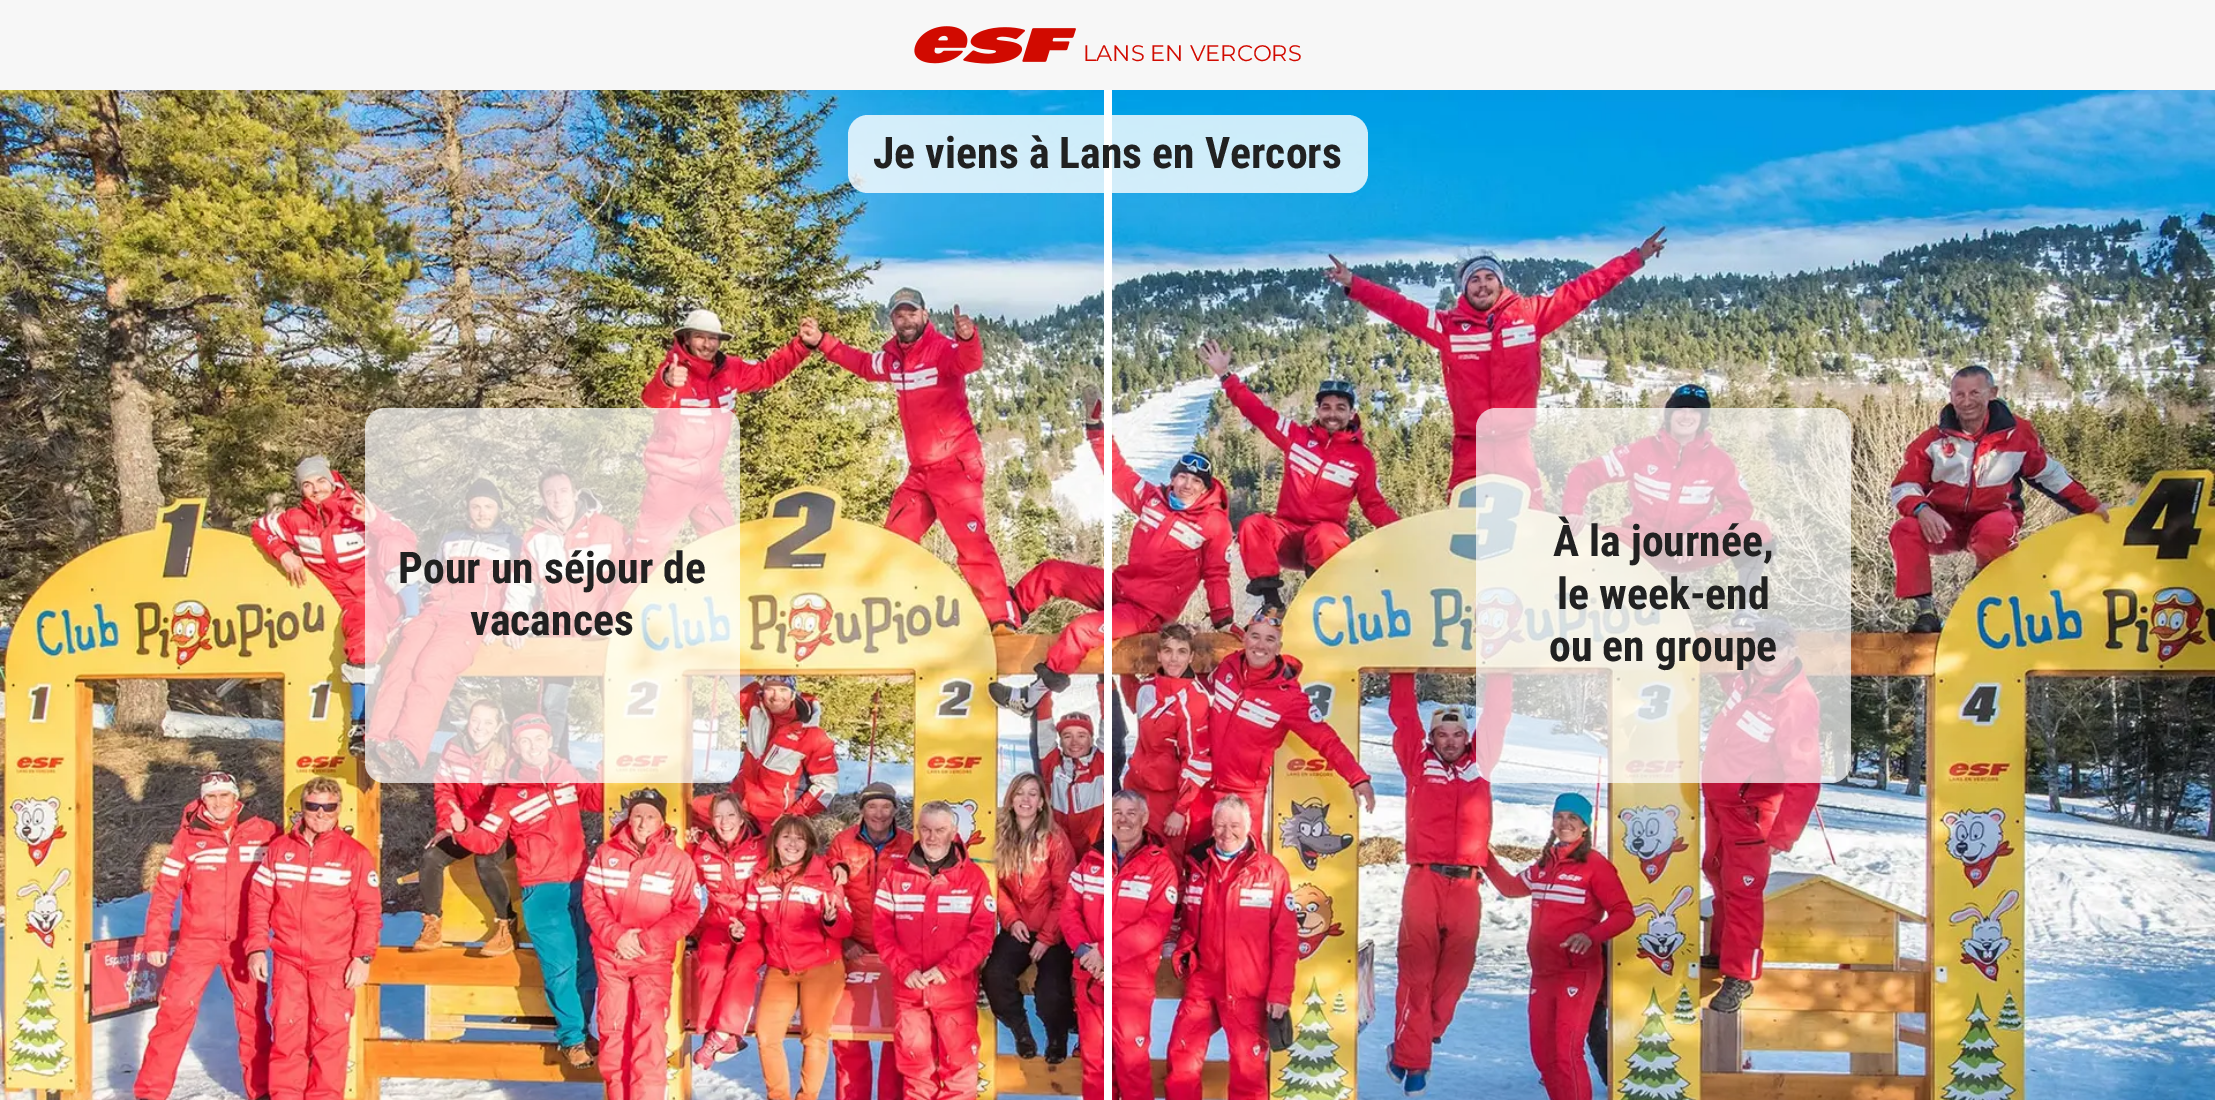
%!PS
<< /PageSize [2215 1100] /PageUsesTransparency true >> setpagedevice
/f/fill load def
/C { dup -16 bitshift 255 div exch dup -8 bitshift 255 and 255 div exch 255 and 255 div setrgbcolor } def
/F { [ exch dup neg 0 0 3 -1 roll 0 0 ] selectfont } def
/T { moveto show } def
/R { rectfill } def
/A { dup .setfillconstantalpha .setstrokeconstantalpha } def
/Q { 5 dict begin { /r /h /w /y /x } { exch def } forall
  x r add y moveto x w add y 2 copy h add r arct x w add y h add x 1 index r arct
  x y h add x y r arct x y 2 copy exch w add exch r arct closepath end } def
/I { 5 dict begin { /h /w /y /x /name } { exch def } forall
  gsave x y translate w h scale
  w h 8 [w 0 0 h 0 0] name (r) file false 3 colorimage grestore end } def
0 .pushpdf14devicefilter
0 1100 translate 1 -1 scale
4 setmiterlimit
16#F7F7F7 C
0 0 2215 1100 R
(1.rgb) 914 26 162 38 I
/Montserrat-Regular 22.5 F
16#D10A00 C
(LANS EN VERCORS) 1083 61 T
(2.rgb) 0 90 2215 1010 I
16#FFFFFF C
1104 90 8 1010 R
0.8 A
848 115 520 78 20 Q f
/RobotoCondensed-Bold 43.75 F
1 A
16#212121 C
(Je viens à Lans en Vercors) 873 168 T
0.7 A
16#FFFFFF C
365 408 375 375 20 Q f
1 A
16#212121 C
(Pour un séjour de) 398 583 T
(vacances) 470 635 T
0.7 A
16#FFFFFF C
1476 408 375 375 20 Q f
1 A
16#212121 C
(À la journée,) 1553 556 T
(le week-end) 1557 609 T
(ou en groupe) 1549 661 T
.poppdf14devicefilter showpage
